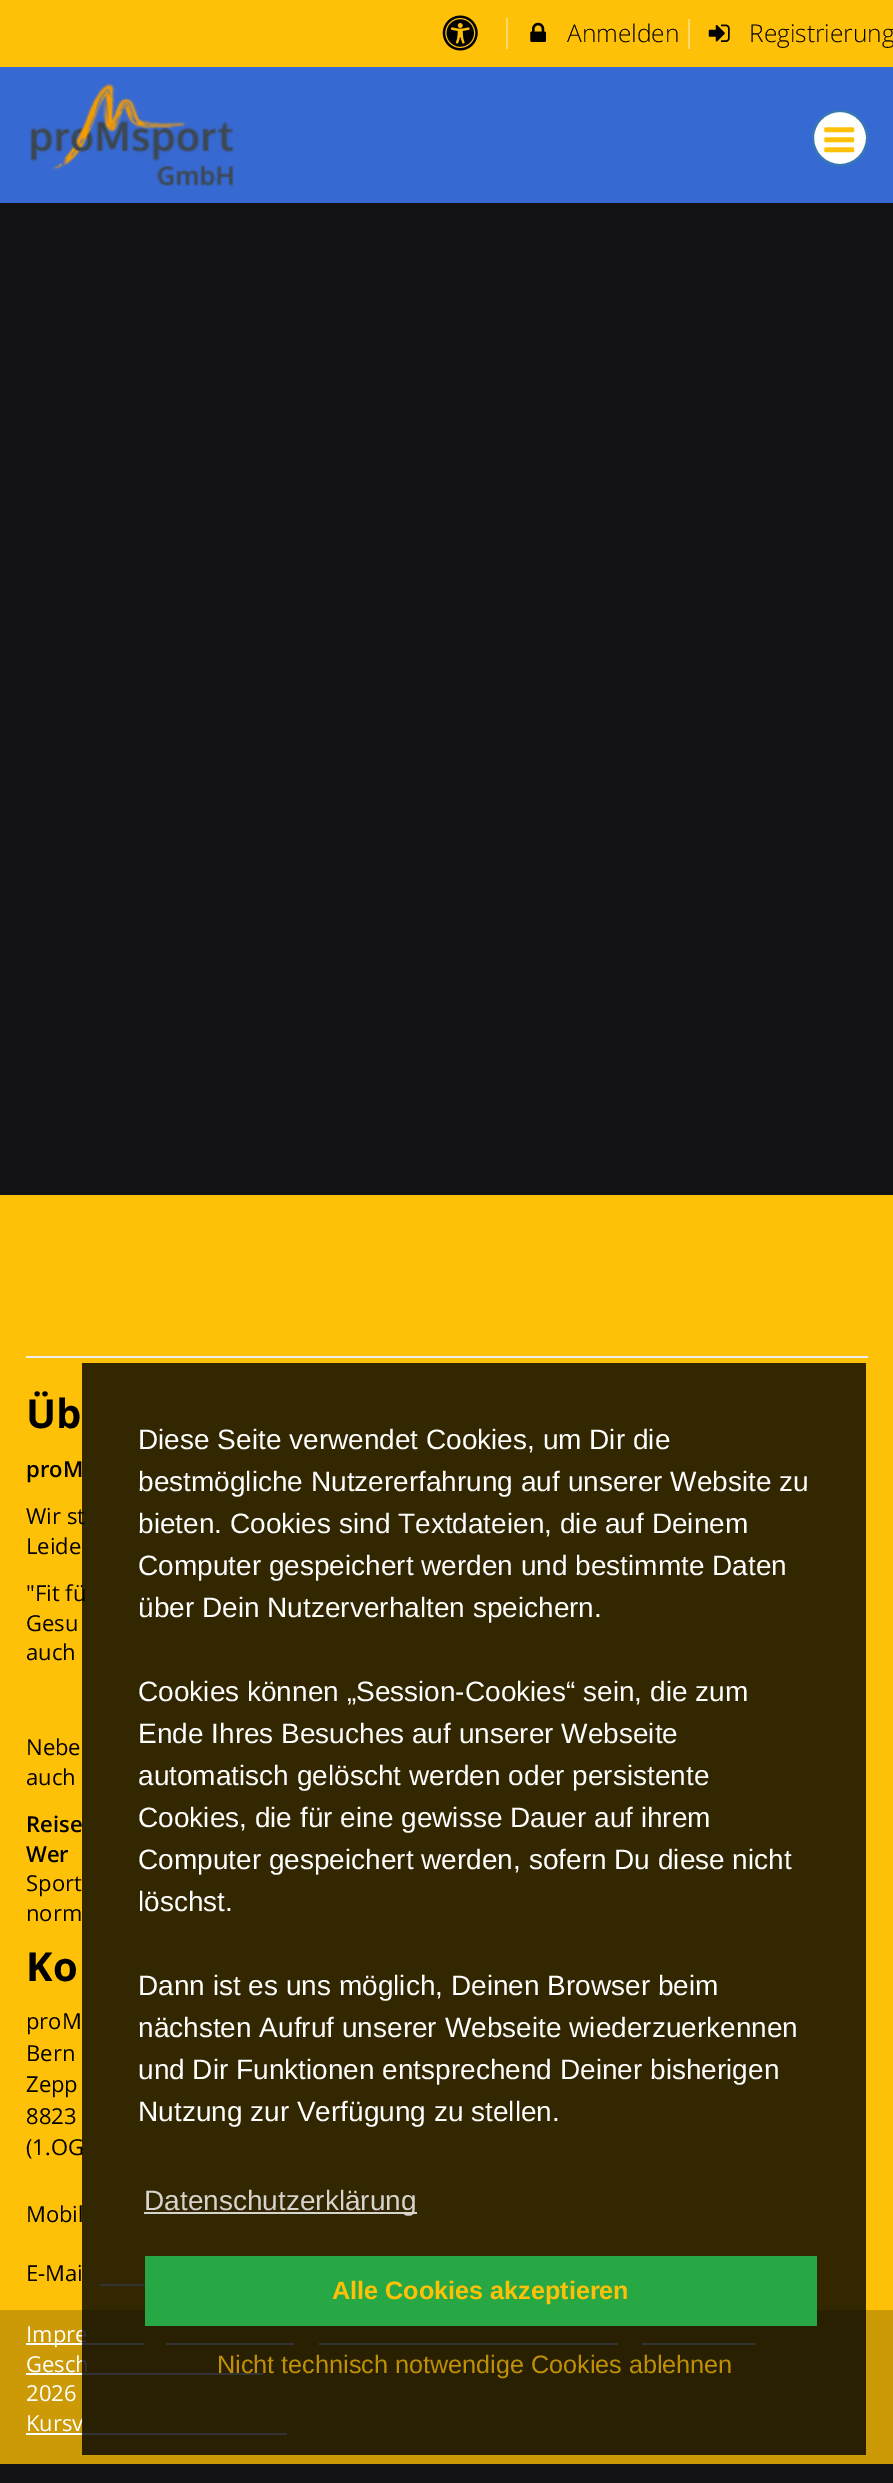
%!PS
<< /PageSize [893 2483] /PageUsesTransparency true >> setpagedevice
/f/fill load def
/s/stroke load def
/q/gsave load def
/Q_/grestore load def
/w/setlinewidth load def
/C { dup -16 bitshift 255 div exch dup -8 bitshift 255 and 255 div exch 255 and 255 div setrgbcolor } def
/F { [ exch dup neg 0 0 3 -1 roll 0 0 ] selectfont } def
/T { moveto show } def
/R { rectfill } def
/A { dup .setfillconstantalpha .setstrokeconstantalpha } def
/O { newpath 0 360 arc closepath } def
/I { 5 dict begin { /h /w /y /x /name } { exch def } forall
  gsave x y translate w h scale
  w h 8 [w 0 0 h 0 0] name (r) file false 3 colorimage grestore end } def
0 .pushpdf14devicefilter
0 2483 translate 1 -1 scale
4 setmiterlimit
16#131315 C
0 0 893 2483 R
16#FFC107 C
0 0 893 67 R
16#FFDA6A C
506 18 2 31 R
(1.rgb) 442 15 36 36 I
688 19 2 30 R
(2.rgb) 530 22 16 20 I
/OpenSans-Light 24.5 F
16#000000 C
(Anmelden) 567 42 T
(3.rgb) 708 24 22 18 I
(Registrierung) 749 42 T
16#3769D2 C
0 67 893 136 R
(4.rgb) 29 83 205 103 I
16#FFFFFF C
840 138 27 O q f Q_
16#3878B2 C
2 w
s
(5.rgb) 824 127 31 26 I
16#FFC107 C
0 1195 893 1115 R
16#EEEEEE C
26 1356 842 2 R
/OpenSans-Bold 40 F
16#000000 C
(Üb) 26 1428 T
/OpenSans-SemiBold 22 F
(proM) 26 1477 T
/OpenSans-Regular 22 F
(Wir st) 26 1524 T
(Leide) 26 1554 T
("Fit fü) 26 1601 T
(Gesu) 26 1631 T
(auch) 26 1660 T
(Nebe) 26 1755 T
(auch) 26 1785 T
/OpenSans-SemiBold 22 F
(Reise) 26 1832 T
(Wer) 26 1862 T
/OpenSans-Regular 22 F
(Sport) 26 1891 T
(norm) 26 1921 T
/OpenSans-Bold 40 F
(Ko) 26 1981 T
/OpenSans-Regular 22 F
(proM) 26 2029 T
(Bern) 26 2061 T
(Zepp) 26 2092 T
(8823) 26 2124 T
(\(1.OG) 26 2155 T
(Mobil) 26 2222 T
(E-Mai) 26 2281 T
16#FFFFFF C
100 2284 45 2 R
16#CC9A06 C
0 2310 893 154 R
16#FFFFFF C
26 2343 118 2 R
(Impre) 26 2342 T
166 2343 128 2 R
319 2343 299 2 R
(Gesch) 26 2372 T
642 2343 114 2 R
26 2373 237 2 R
(2026) 26 2401 T
(Kursv) 26 2431 T
26 2433 261 2 R
0.8 A
16#000000 C
82 1363 784 1092 R
/LiberationSans-Regular 28 F
1 A
16#FFFFFF C
(Diese Seite verwendet Cookies, um Dir die) 138 1449 T
(bestmögliche Nutzererfahrung auf unserer Website zu) 138 1491 T
(bieten. Cookies sind Textdateien, die auf Deinem) 138 1533 T
(Computer gespeichert werden und bestimmte Daten) 138 1575 T
(über Dein Nutzerverhalten speichern.) 138 1617 T
(Cookies können „Session-Cookies“ sein, die zum) 138 1701 T
(Ende Ihres Besuches auf unserer Webseite) 138 1743 T
(automatisch gelöscht werden oder persistente) 138 1785 T
(Cookies, die für eine gewisse Dauer auf ihrem) 138 1827 T
(Computer gespeichert werden, sofern Du diese nicht) 138 1869 T
(löschst.) 138 1911 T
(Dann ist es uns möglich, Deinen Browser beim) 138 1995 T
(nächsten Aufruf unserer Webseite wiederzuerkennen) 138 2037 T
(und Dir Funktionen entsprechend Deiner bisherigen) 138 2079 T
(Nutzung zur Verfügung zu stellen.) 138 2121 T
0.8 A
144 2212 273 2 R
1 A
16#D6D4CD C
(Datenschutzerklärung) 144 2210 T
16#28A745 C
145 2256 672 70 R
/LiberationSans-Bold 25.2 F
16#FFC107 C
(Alle Cookies akzeptieren) 332 2299 T
/LiberationSans-Regular 25.2 F
16#BF9006 C
(Nicht technisch notwendige Cookies ablehnen) 217 2373 T
.poppdf14devicefilter showpage
